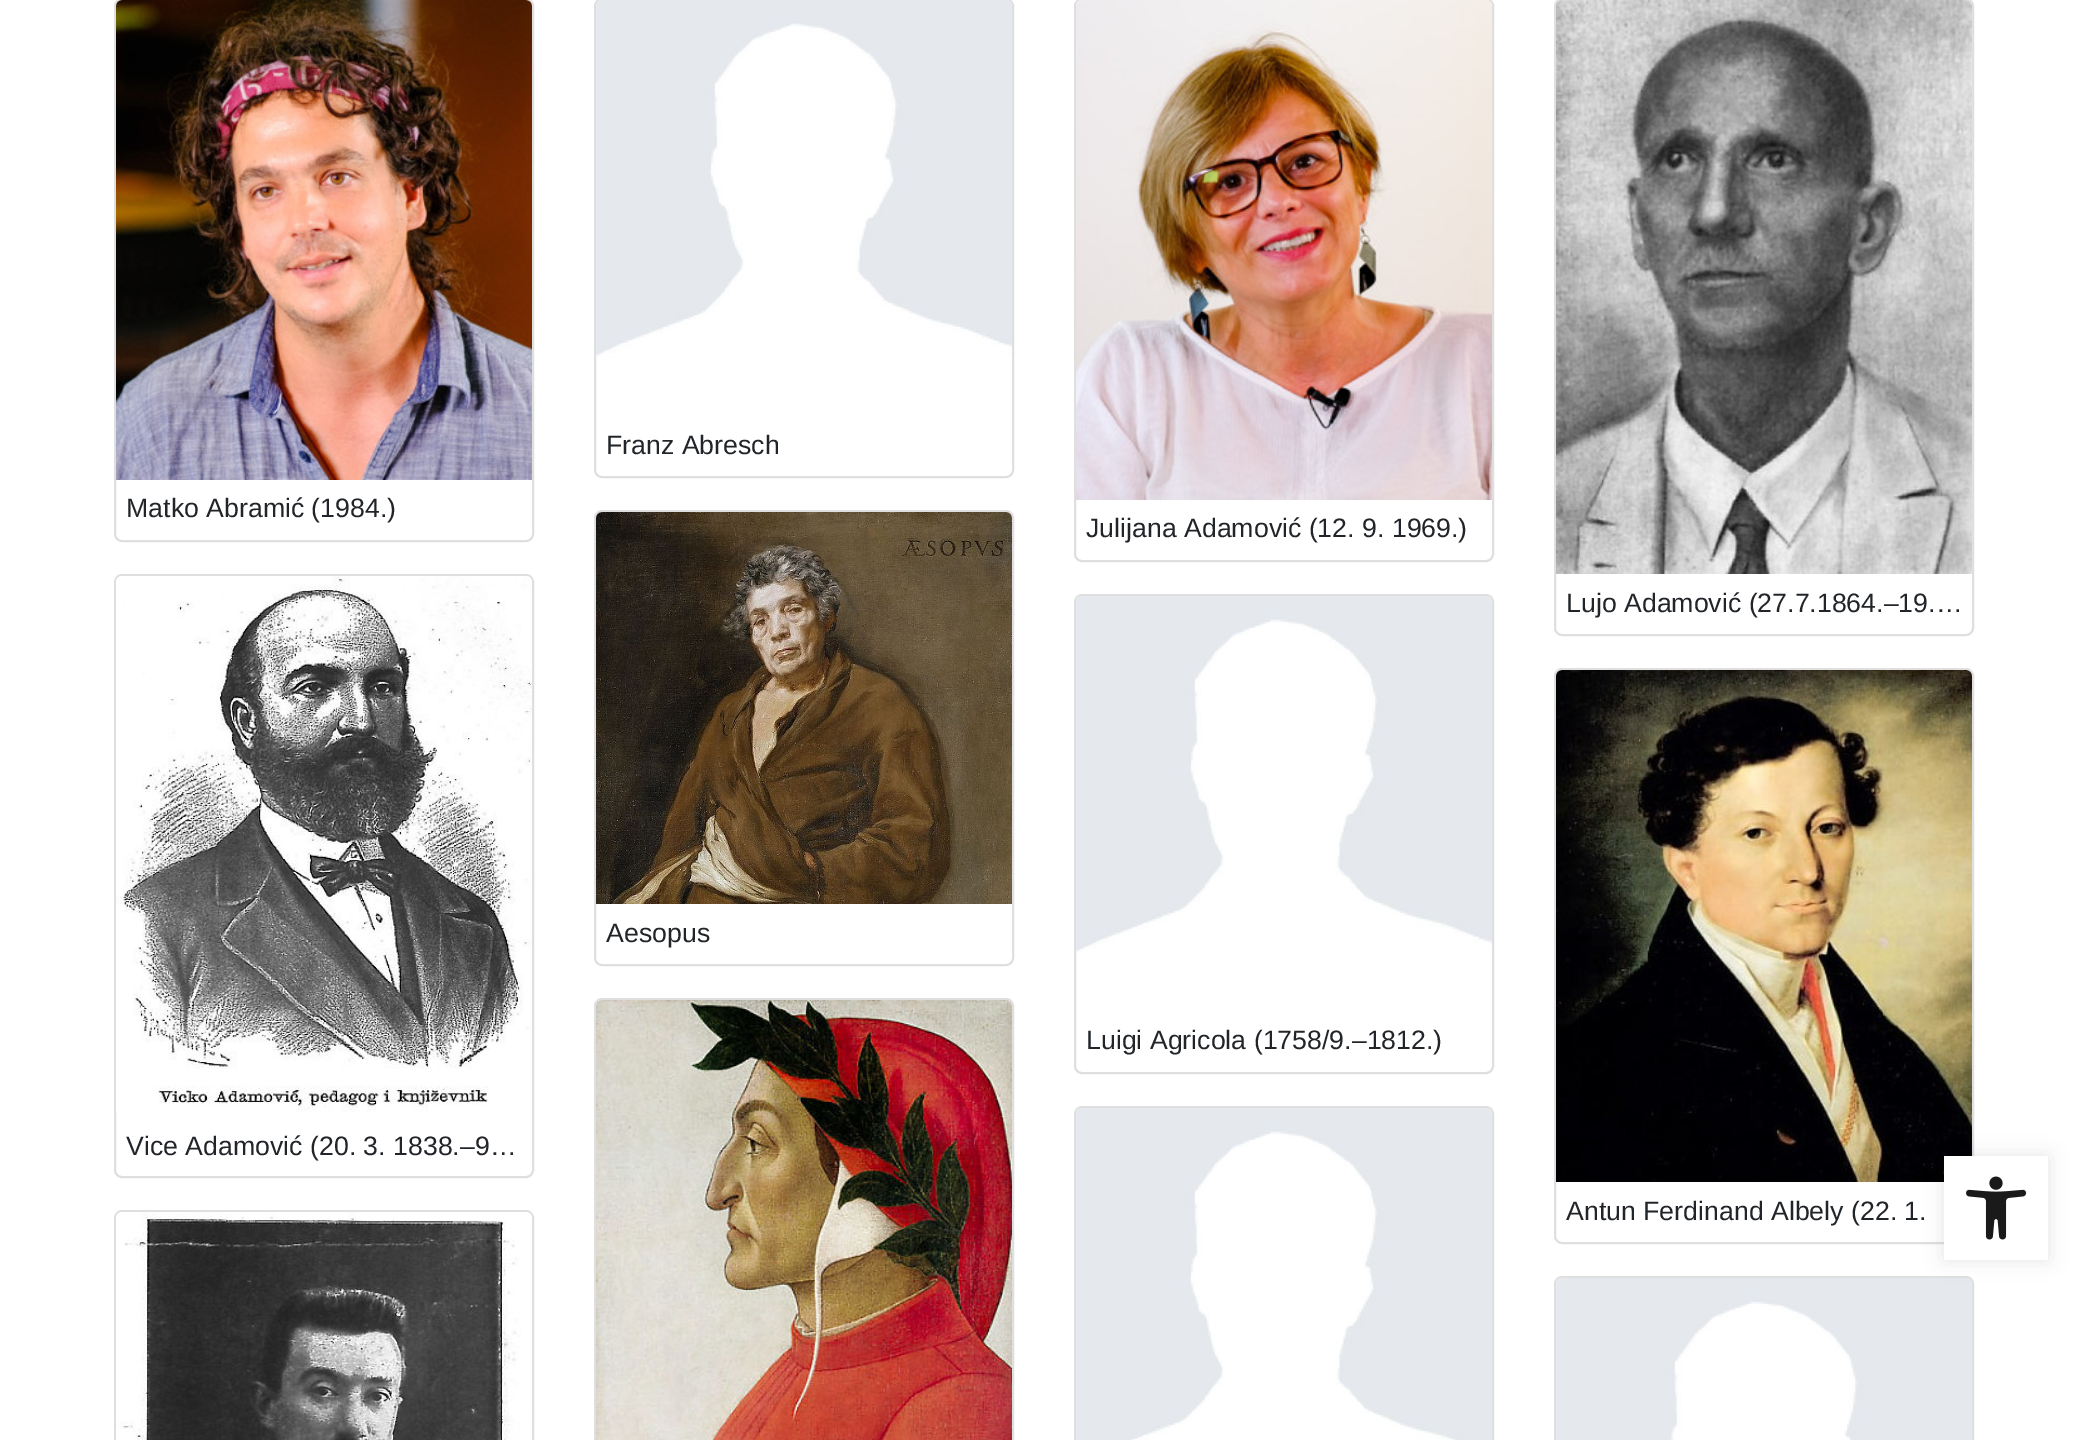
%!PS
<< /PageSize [2088 1440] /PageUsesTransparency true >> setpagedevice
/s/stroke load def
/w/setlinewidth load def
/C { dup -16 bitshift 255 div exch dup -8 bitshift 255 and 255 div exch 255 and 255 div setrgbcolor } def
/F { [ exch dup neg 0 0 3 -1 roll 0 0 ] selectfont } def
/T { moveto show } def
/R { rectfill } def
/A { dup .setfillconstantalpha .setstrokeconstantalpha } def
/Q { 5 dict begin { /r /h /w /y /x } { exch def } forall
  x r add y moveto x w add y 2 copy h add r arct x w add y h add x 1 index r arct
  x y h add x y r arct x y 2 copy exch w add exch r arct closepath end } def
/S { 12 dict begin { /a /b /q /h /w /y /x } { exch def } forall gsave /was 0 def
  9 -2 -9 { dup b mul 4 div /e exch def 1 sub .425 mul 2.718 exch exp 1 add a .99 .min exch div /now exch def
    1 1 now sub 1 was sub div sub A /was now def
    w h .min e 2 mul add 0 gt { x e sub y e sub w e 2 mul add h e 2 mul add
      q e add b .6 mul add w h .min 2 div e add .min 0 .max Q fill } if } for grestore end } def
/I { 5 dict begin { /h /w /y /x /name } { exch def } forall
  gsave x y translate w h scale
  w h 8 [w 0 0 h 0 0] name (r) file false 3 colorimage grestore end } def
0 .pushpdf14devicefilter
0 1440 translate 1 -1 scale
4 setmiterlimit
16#FFFFFF C
0 0 2088 1440 R
16#DFDFDF C
2 w
595 -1 418 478 7 Q s
(1.rgb) 596 0 416 357 I
/LiberationSans-Regular 26.7 F
16#212529 C
(Franz Abresch) 606 454 T
16#DFDFDF C
115 -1 418 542 7 Q s
(2.rgb) 116 0 416 480 I
16#212529 C
(Matko Abramić \(1984.\)) 126 517 T
16#DFDFDF C
1075 -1 418 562 7 Q s
(3.rgb) 1076 0 416 500 I
16#212529 C
(Julijana Adamović \(12. 9. 1969.\)) 1086 537 T
16#DFDFDF C
1555 -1 418 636 7 Q s
(4.rgb) 1556 0 416 574 I
16#212529 C
(Lujo Adamović \(27.7.1864.–19.…) 1566 612 T
16#DFDFDF C
595 511 418 454 7 Q s
(5.rgb) 596 512 416 392 I
16#212529 C
(Aesopus) 606 942 T
16#DFDFDF C
595 999 418 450 7 Q s
(6.rgb) 596 1000 416 440 I
1075 595 418 478 7 Q s
(7.rgb) 1076 596 416 357 I
16#212529 C
(Luigi Agricola \(1758/9.–1812.\)) 1086 1049 T
16#DFDFDF C
115 575 418 602 7 Q s
(8.rgb) 116 576 416 536 I
16#212529 C
(Vice Adamović \(20. 3. 1838.–9…) 126 1155 T
16#DFDFDF C
1075 1107 418 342 7 Q s
(9.rgb) 1076 1108 416 332 I
115 1211 418 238 7 Q s
(10.rgb) 116 1212 416 228 I
1555 669 418 574 7 Q s
(11.rgb) 1556 670 416 512 I
16#212529 C
(Antun Ferdinand Albely \(22. 1.) 1566 1220 T
16#DFDFDF C
1555 1277 418 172 7 Q s
(12.rgb) 1556 1278 416 162 I
16#000000 C
1944 1156 104 104 0 10 .1 S
16#FFFFFF C
1944 1156 104 104 R
(13.rgb) 1966 1176 61 64 I
.poppdf14devicefilter showpage
